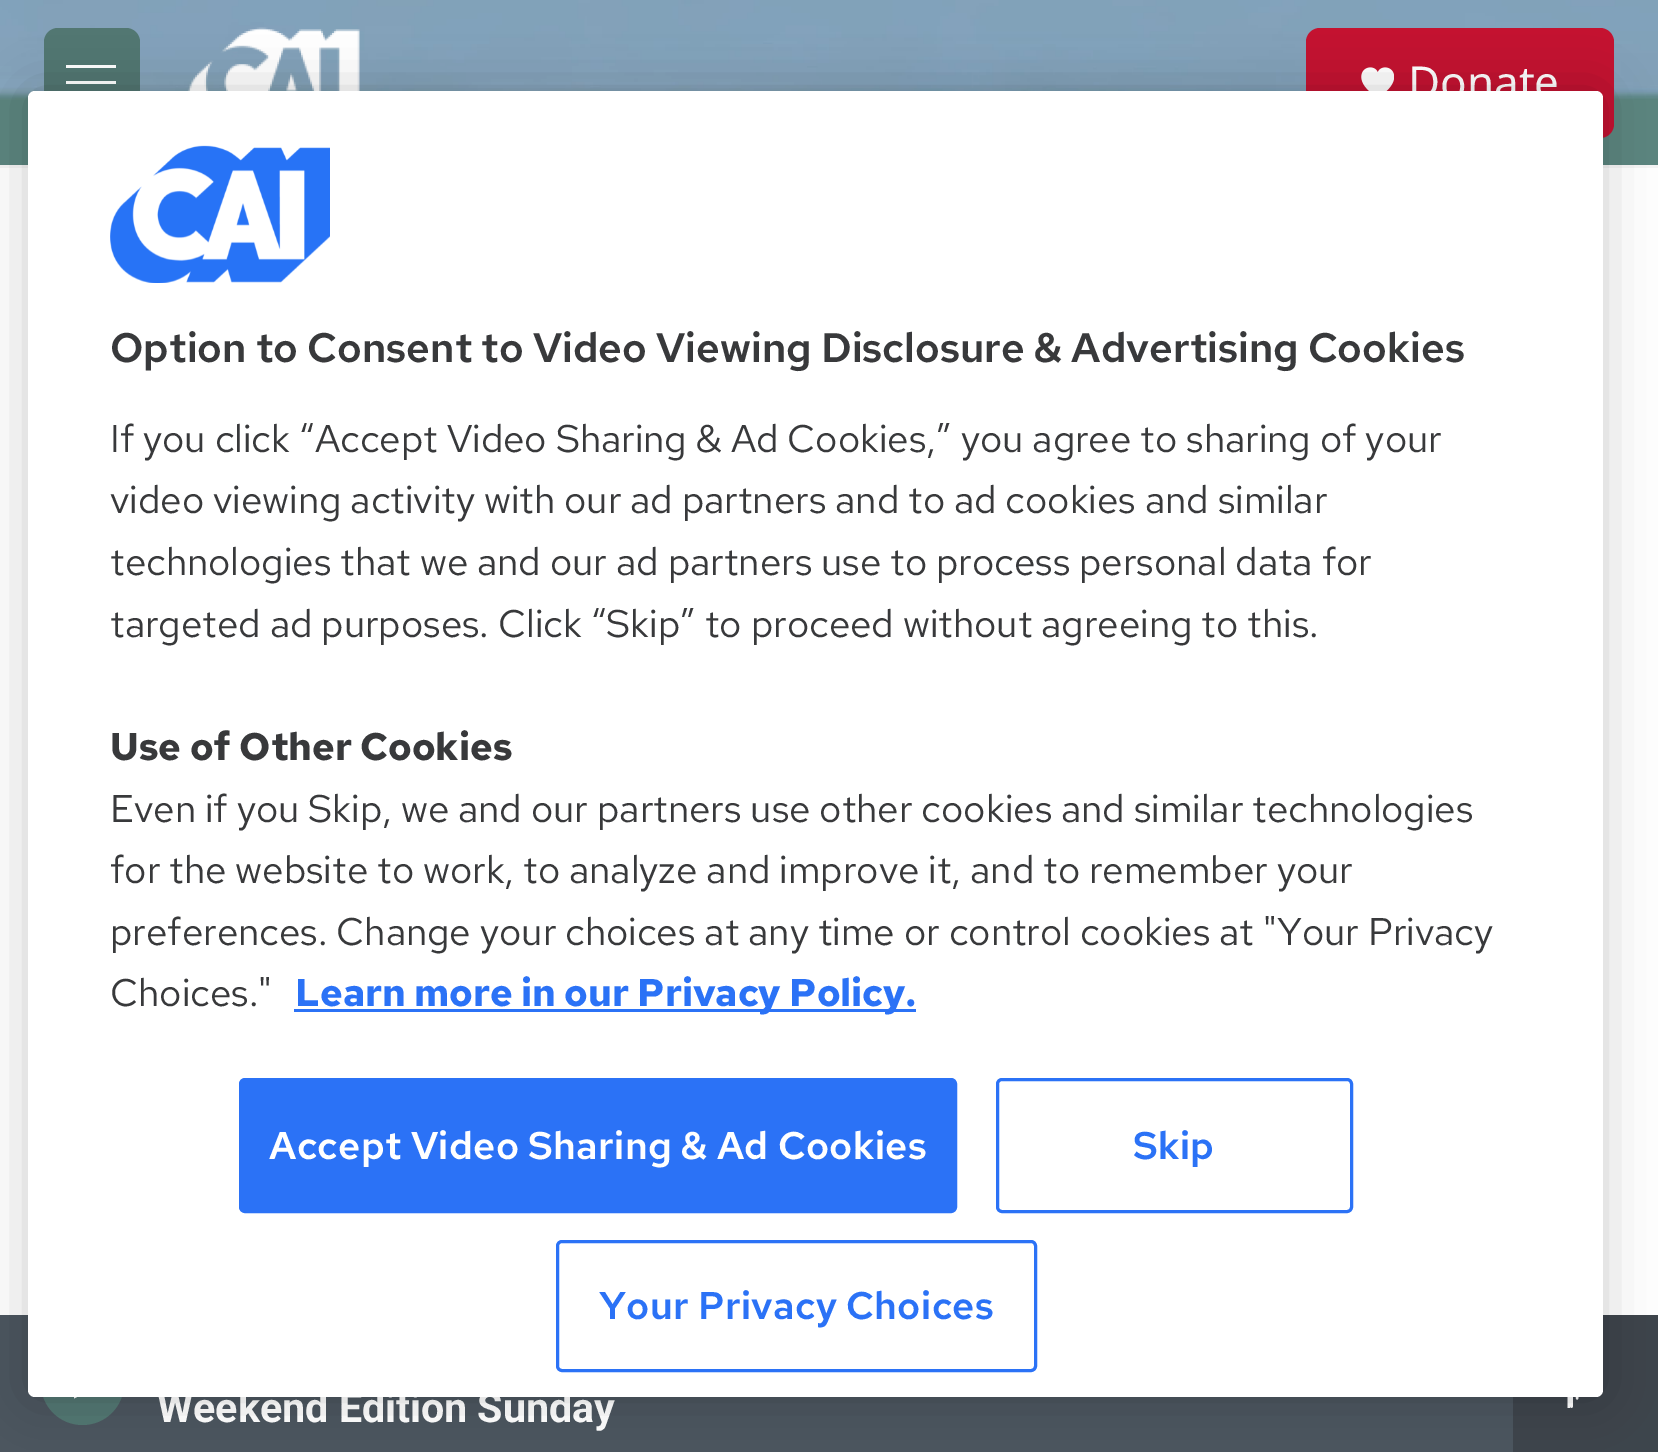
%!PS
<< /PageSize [1658 1452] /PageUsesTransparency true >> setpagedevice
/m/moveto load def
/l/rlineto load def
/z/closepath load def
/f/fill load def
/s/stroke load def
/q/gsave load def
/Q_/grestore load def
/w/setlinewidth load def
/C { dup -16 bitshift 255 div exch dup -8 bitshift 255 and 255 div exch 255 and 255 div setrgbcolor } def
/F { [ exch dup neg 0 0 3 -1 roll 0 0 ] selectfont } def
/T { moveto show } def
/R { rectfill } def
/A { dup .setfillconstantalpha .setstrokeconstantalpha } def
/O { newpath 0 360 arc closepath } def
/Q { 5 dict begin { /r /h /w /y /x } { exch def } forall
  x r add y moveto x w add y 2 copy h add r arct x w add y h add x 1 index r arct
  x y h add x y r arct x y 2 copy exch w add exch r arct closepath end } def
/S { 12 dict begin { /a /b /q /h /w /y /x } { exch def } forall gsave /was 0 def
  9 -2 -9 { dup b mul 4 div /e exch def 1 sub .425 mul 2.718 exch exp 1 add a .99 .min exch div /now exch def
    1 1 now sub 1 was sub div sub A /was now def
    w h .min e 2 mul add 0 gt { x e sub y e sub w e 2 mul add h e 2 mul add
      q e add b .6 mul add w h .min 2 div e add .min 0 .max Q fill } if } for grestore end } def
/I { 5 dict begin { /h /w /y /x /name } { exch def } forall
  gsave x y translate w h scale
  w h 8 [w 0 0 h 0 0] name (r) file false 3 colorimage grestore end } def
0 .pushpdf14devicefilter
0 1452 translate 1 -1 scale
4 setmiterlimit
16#FFFFFF C
0 0 1658 1452 R
16#5C857F C
0 100 1658 65 R
16#F5F5F5 C
0 165 1658 3 R
(1.rgb) 0 0 1658 100 I
16#527772 C
44 28 96 110 14 Q f
16#FFFFFF C
66 84 m 0 -3 l 50 0 l 0 3 l z 66 68 m 0 -3 l 50 0 l 0 3 l z 66 100 m 0 -3 l 50 0 l 0 3 l z eofill
(2.rgb) 187 27 173 64 I
16#C41230 C
1306 28 308 110 14 Q f
(3.rgb) 1361 67 33 24 I
/NotoSans-Regular 44 F
16#FFFFFF C
(Donate) 1408 98 T
16#4C565F C
0 1315 1513 137 R
16#527772 C
82.5 1383.5 41.5 O f
16#FFFFFF C
74 1371 m 28 13.5 l -28 14 l z f
/Roboto-Bold 41.25 F
(Weekend Edition Sunday) 157 1422 T
16#3D454C C
1513 1315 145 137 R
(4.rgb) 1567 1397 12 11 I
16#000000 C
28 91 1575 1306 7 25 .2 S
16#FFFFFF C
28 91 1575 1306 7 Q f
(5.rgb) 110 145 220 138 I
/RedHatText-SemiBold 41.25 F
16#38393B C
(Option to Consent to Video Viewing Disclosure & Advertising Cookies) 110 362 T
/RedHatText-Regular 38.5 F
(If you click “Accept Video Sharing & Ad Cookies,” you agree to sharing of your) 110 452 T
(video viewing activity with our ad partners and to ad cookies and similar) 110 513 T
(technologies that we and our ad partners use to process personal data for) 110 575 T
(targeted ad purposes. Click “Skip” to proceed without agreeing to this.) 110 637 T
/RedHatText-Bold 38.5 F
(Use of Other Cookies) 110 760 T
/RedHatText-Regular 38.5 F
(Even if you Skip, we and our partners use other cookies and similar technologies) 110 822 T
(for the website to work, to analyze and improve it, and to remember your) 110 883 T
(preferences. Change your choices at any time or control cookies at "Your Privacy) 110 945 T
(Choices.") 110 1006 T
16#2B72F6 C
294 1009 622 3 R
/RedHatText-Bold 38.5 F
(Learn more in our Privacy Policy.) 295 1006 T
240.5 1079.5 715 132 4.5 Q q f Q_
3 w
s
/RedHatText-SemiBold 38.5 F
16#FFFFFF C
269 1159 m .4 0 (Accept Video Sharing & Ad Cookies) ashow
16#2B72F6 C
997.5 1079.5 354 132 4.5 Q s
1133 1159 m .4 0 (Skip) ashow
557.5 1241.5 478 129 4.5 Q s
599 1319 m .4 0 (Your Privacy Choices) ashow
.poppdf14devicefilter showpage
